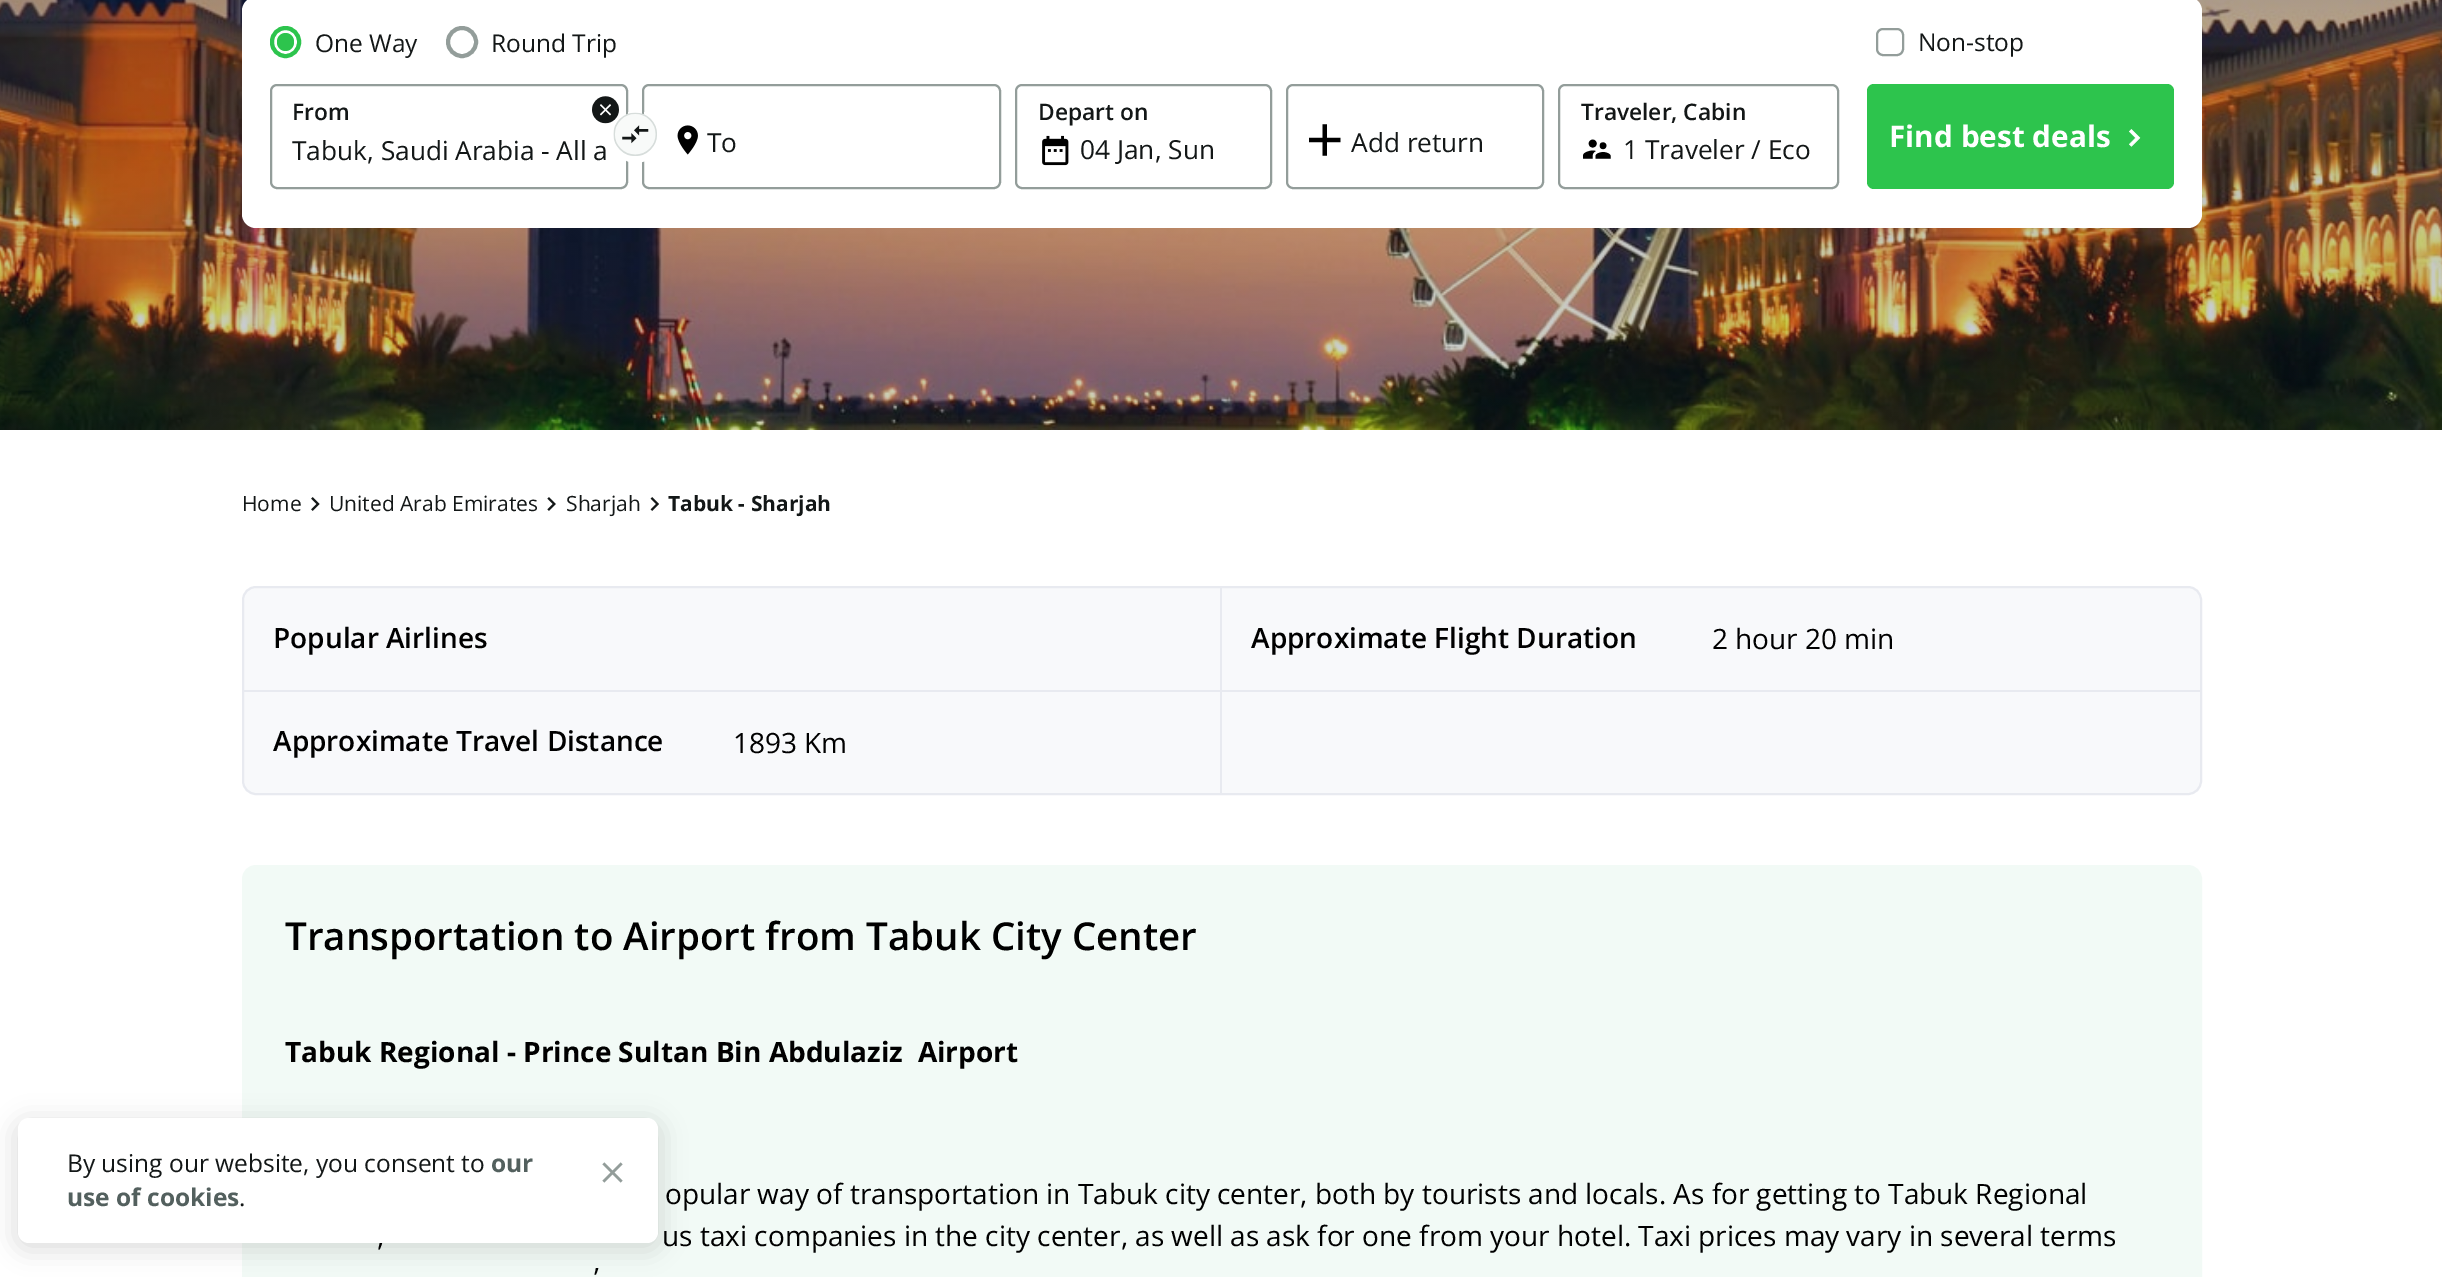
%!PS
<< /PageSize [2442 1277] /PageUsesTransparency true >> setpagedevice
/f/fill load def
/s/stroke load def
/q/gsave load def
/Q_/grestore load def
/w/setlinewidth load def
/C { dup -16 bitshift 255 div exch dup -8 bitshift 255 and 255 div exch 255 and 255 div setrgbcolor } def
/F { [ exch dup neg 0 0 3 -1 roll 0 0 ] selectfont } def
/T { moveto show } def
/R { rectfill } def
/A { dup .setfillconstantalpha .setstrokeconstantalpha } def
/O { newpath 0 360 arc closepath } def
/Q { 5 dict begin { /r /h /w /y /x } { exch def } forall
  x r add y moveto x w add y 2 copy h add r arct x w add y h add x 1 index r arct
  x y h add x y r arct x y 2 copy exch w add exch r arct closepath end } def
/S { 12 dict begin { /a /b /q /h /w /y /x } { exch def } forall gsave /was 0 def
  9 -2 -9 { dup b mul 4 div /e exch def 1 sub .425 mul 2.718 exch exp 1 add a .99 .min exch div /now exch def
    1 1 now sub 1 was sub div sub A /was now def
    w h .min e 2 mul add 0 gt { x e sub y e sub w e 2 mul add h e 2 mul add
      q e add b .6 mul add w h .min 2 div e add .min 0 .max Q fill } if } for grestore end } def
/I { 5 dict begin { /h /w /y /x /name } { exch def } forall
  gsave x y translate w h scale
  w h 8 [w 0 0 h 0 0] name (r) file false 3 colorimage grestore end } def
0 .pushpdf14devicefilter
0 1277 translate 1 -1 scale
4 setmiterlimit
16#FFFFFF C
0 0 2442 1277 R
(1.rgb) 0 0 2442 430 I
242 -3 1960 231 14 Q f
16#2DC44D C
4 w
272 28 27 28 13.5 Q s
277 33 17 18 8.5 Q f
/OpenSans-Regular 24.5 F
16#131717 C
(One Way) 315 52 T
16#939D9A C
462 42 14 O s
16#131717 C
(Round Trip) 491 52 T
16#939D9A C
2 w
1877 29 26 26 6 Q s
16#131717 C
(Non-stop) 1918 51 T
16#939D9A C
271 85 356 103 6 Q s
/OpenSans-SemiBold 22.75 F
16#131717 C
(From) 292 120 T
(2.rgb) 592 96 27 28 I
/OpenSans-Regular 26.25 F
(Tabuk, Saudi Arabia - All a) 292 160 T
16#939D9A C
643 85 357 103 6 Q s
16#FFFFFF C
636 141 22 O f
(3.rgb) 613 112 44 44 I
(4.rgb) 677 125 21 30 I
16#131717 C
(To) 707 152 T
16#939D9A C
1016 85 255 103 6 Q s
/OpenSans-SemiBold 22.75 F
16#131717 C
(Depart on) 1038 120 T
(5.rgb) 1042 135 27 31 I
/OpenSans-Regular 26.25 F
(04 Jan, Sun) 1080 159 T
16#939D9A C
1287 85 256 103 6 Q s
(6.rgb) 1309 124 32 32 I
16#131717 C
(Add return) 1351 152 T
16#939D9A C
1559 85 279 103 6 Q s
/OpenSans-SemiBold 22.75 F
16#131717 C
(Traveler, Cabin) 1581 120 T
(7.rgb) 1583 139 28 20 I
/OpenSans-Regular 26.25 F
(1 Traveler / Eco) 1623 159 T
16#2DC44D C
1867 84 307 105 7 Q f
/OpenSans-Bold 29.75 F
16#FFFFFF C
(Find best deals) 1889 147 T
(8.rgb) 2129 129 12 18 I
/OpenSans-Regular 21 F
16#131717 C
(Home) 242 511 T
(9.rgb) 311 497 9 14 I
(United Arab Emirates) 329 511 T
(10.rgb) 547 497 9 14 I
(Sharjah) 566 511 T
(11.rgb) 650 497 9 14 I
/OpenSans-Bold 21 F
(Tabuk - Sharjah) 668 511 T
16#F8F9FB C
243 587 1958 207 13 Q q f Q_
16#E8EAF0 C
s
1220 588 2 103 R
243 690 1957 2 R
/OpenSans-SemiBold 28 F
16#000000 C
(Popular Airlines) 273 648 T
(Approximate Flight Duration) 1251 648 T
/OpenSans-Regular 28 F
(2 hour 20 min) 1712 649 T
16#E8EAF0 C
1220 691 2 102 R
/OpenSans-SemiBold 28 F
16#000000 C
(Approximate Travel Distance) 273 751 T
/OpenSans-Regular 28 F
(1893 Km) 733 753 T
16#F2FAF6 C
243 866 1958 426 13 Q q f Q_
s
/OpenSans-SemiBold 38.5 F
16#000000 C
(Transportation to Airport from Tabuk City Center) 285 950 T
/OpenSans-Bold 28 F
(Tabuk Regional - Prince Sultan Bin Abdulaziz  Airport) 285 1062 T
/OpenSans-Regular 28 F
(opular way of transportation in Tabuk city center, both by tourists and locals. As for getting to Tabuk Regional) 665 1204 T
(,) 377 1246 T
(us taxi companies in the city center, as well as ask for one from your hotel. Taxi prices may vary in several terms) 662 1246 T
(’) 594 1288 T
14 1120 648 131 14 12 .12 S
16#FFFFFF C
18 1118 640 125 11 Q f
/OpenSans-Regular 24.5 F
16#131717 C
(By using our website, you consent to) 67 1172 T
/OpenSans-Bold 24.5 F
16#53605E C
(our) 491 1172 T
(use of cookies) 67 1206 T
/OpenSans-Regular 24.5 F
16#131717 C
(.) 239 1206 T
(12.rgb) 602 1162 21 21 I
.poppdf14devicefilter showpage
